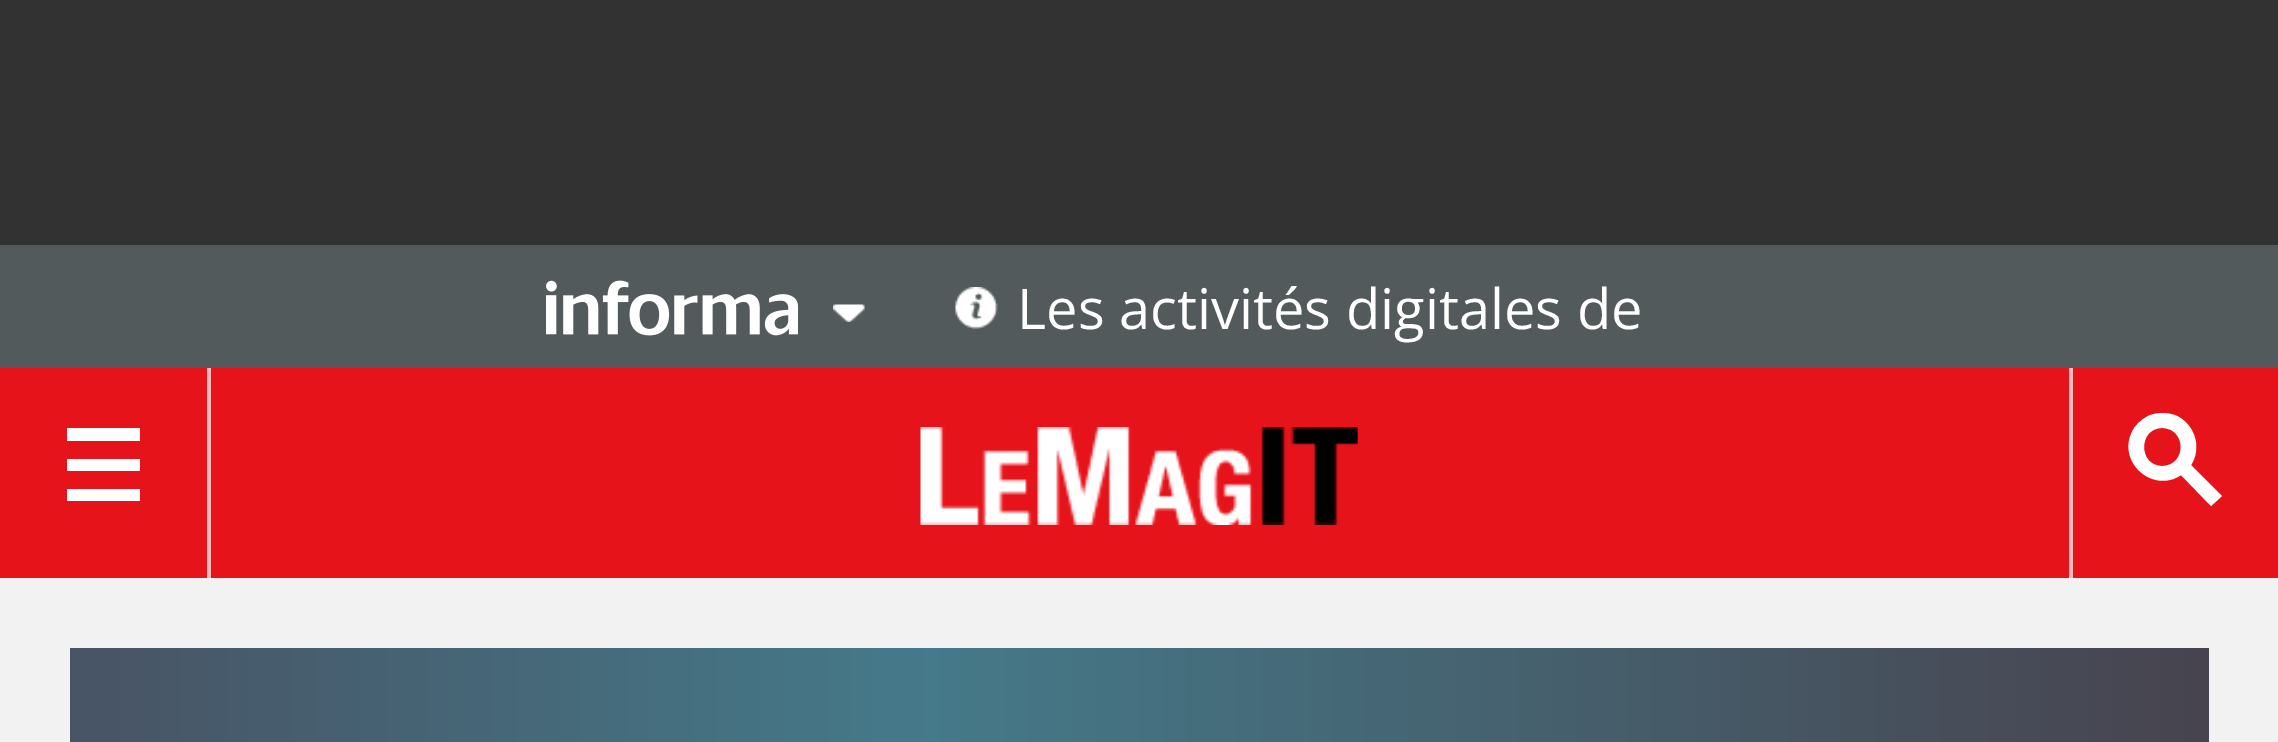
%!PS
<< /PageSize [2278 742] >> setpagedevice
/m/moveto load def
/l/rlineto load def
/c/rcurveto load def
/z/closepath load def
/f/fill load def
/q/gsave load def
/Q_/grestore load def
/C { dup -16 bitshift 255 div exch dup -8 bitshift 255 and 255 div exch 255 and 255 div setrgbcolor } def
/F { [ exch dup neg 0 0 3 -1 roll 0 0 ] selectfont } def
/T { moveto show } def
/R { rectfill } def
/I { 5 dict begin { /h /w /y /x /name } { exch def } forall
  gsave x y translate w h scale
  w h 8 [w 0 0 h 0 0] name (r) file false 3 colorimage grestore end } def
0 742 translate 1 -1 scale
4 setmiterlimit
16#F2F2F2 C
0 0 2278 742 R
16#323232 C
0 0 2278 245 R
16#525A5C C
0 245 2278 123 R
(1.rgb) 546 280 252 56 I
(2.rgb) 833 304 32 18 I
(3.rgb) 955 287 43 42 I
/OpenSans-Regular 56 F
16#FFFFFF C
(Les activités digitales de) 1017 329 T
16#E7131A C
0 368 2278 210 R
16#FABABD C
207 368 4 210 R
16#FFFFFF C
67 428 m 73 0 l 0 13 l -73 0 l z 67 459 m 73 0 l 0 12 l -73 0 l z 67 489 m 73 0 l 0 12 l -73 0 l z f
(4.rgb) 920 427 438 98 I
16#FABABD C
2069 368 4 210 R
16#FFFFFF C
2222 496 m -31 -31 l 11 -17 4 -40 -14 -49 c -9 -4 -20 -4 -29 0 c -7 4 -13 9 -16 16 c -15 30 21 62 49 43 c 30 31 l z 2162 466 m -24 0 -24 -38 0 -38 c 25 0 25 38 0 38 c z f
q 70 648 m 2139 0 l 0 94 l -2139 0 l z clip newpath
<< /ShadingType 2 /ColorSpace /DeviceRGB /Coords [70 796 2209 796] /Extend [true true] /Function << /FunctionType 3 /Domain [0 1] /Functions [<< /FunctionType 2 /Domain [0 1] /C0 [.282 .333 .4] /C1 [.282 .333 .4] /N 1 >> << /FunctionType 2 /Domain [0 1] /C0 [.282 .333 .4] /C1 [.271 .478 .541] /N 1 >> << /FunctionType 2 /Domain [0 1] /C0 [.271 .478 .541] /C1 [.278 .267 .31] /N 1 >>] /Bounds [.01 .4] /Encode [0 1 0 1 0 1] >> >> shfill Q_
showpage
